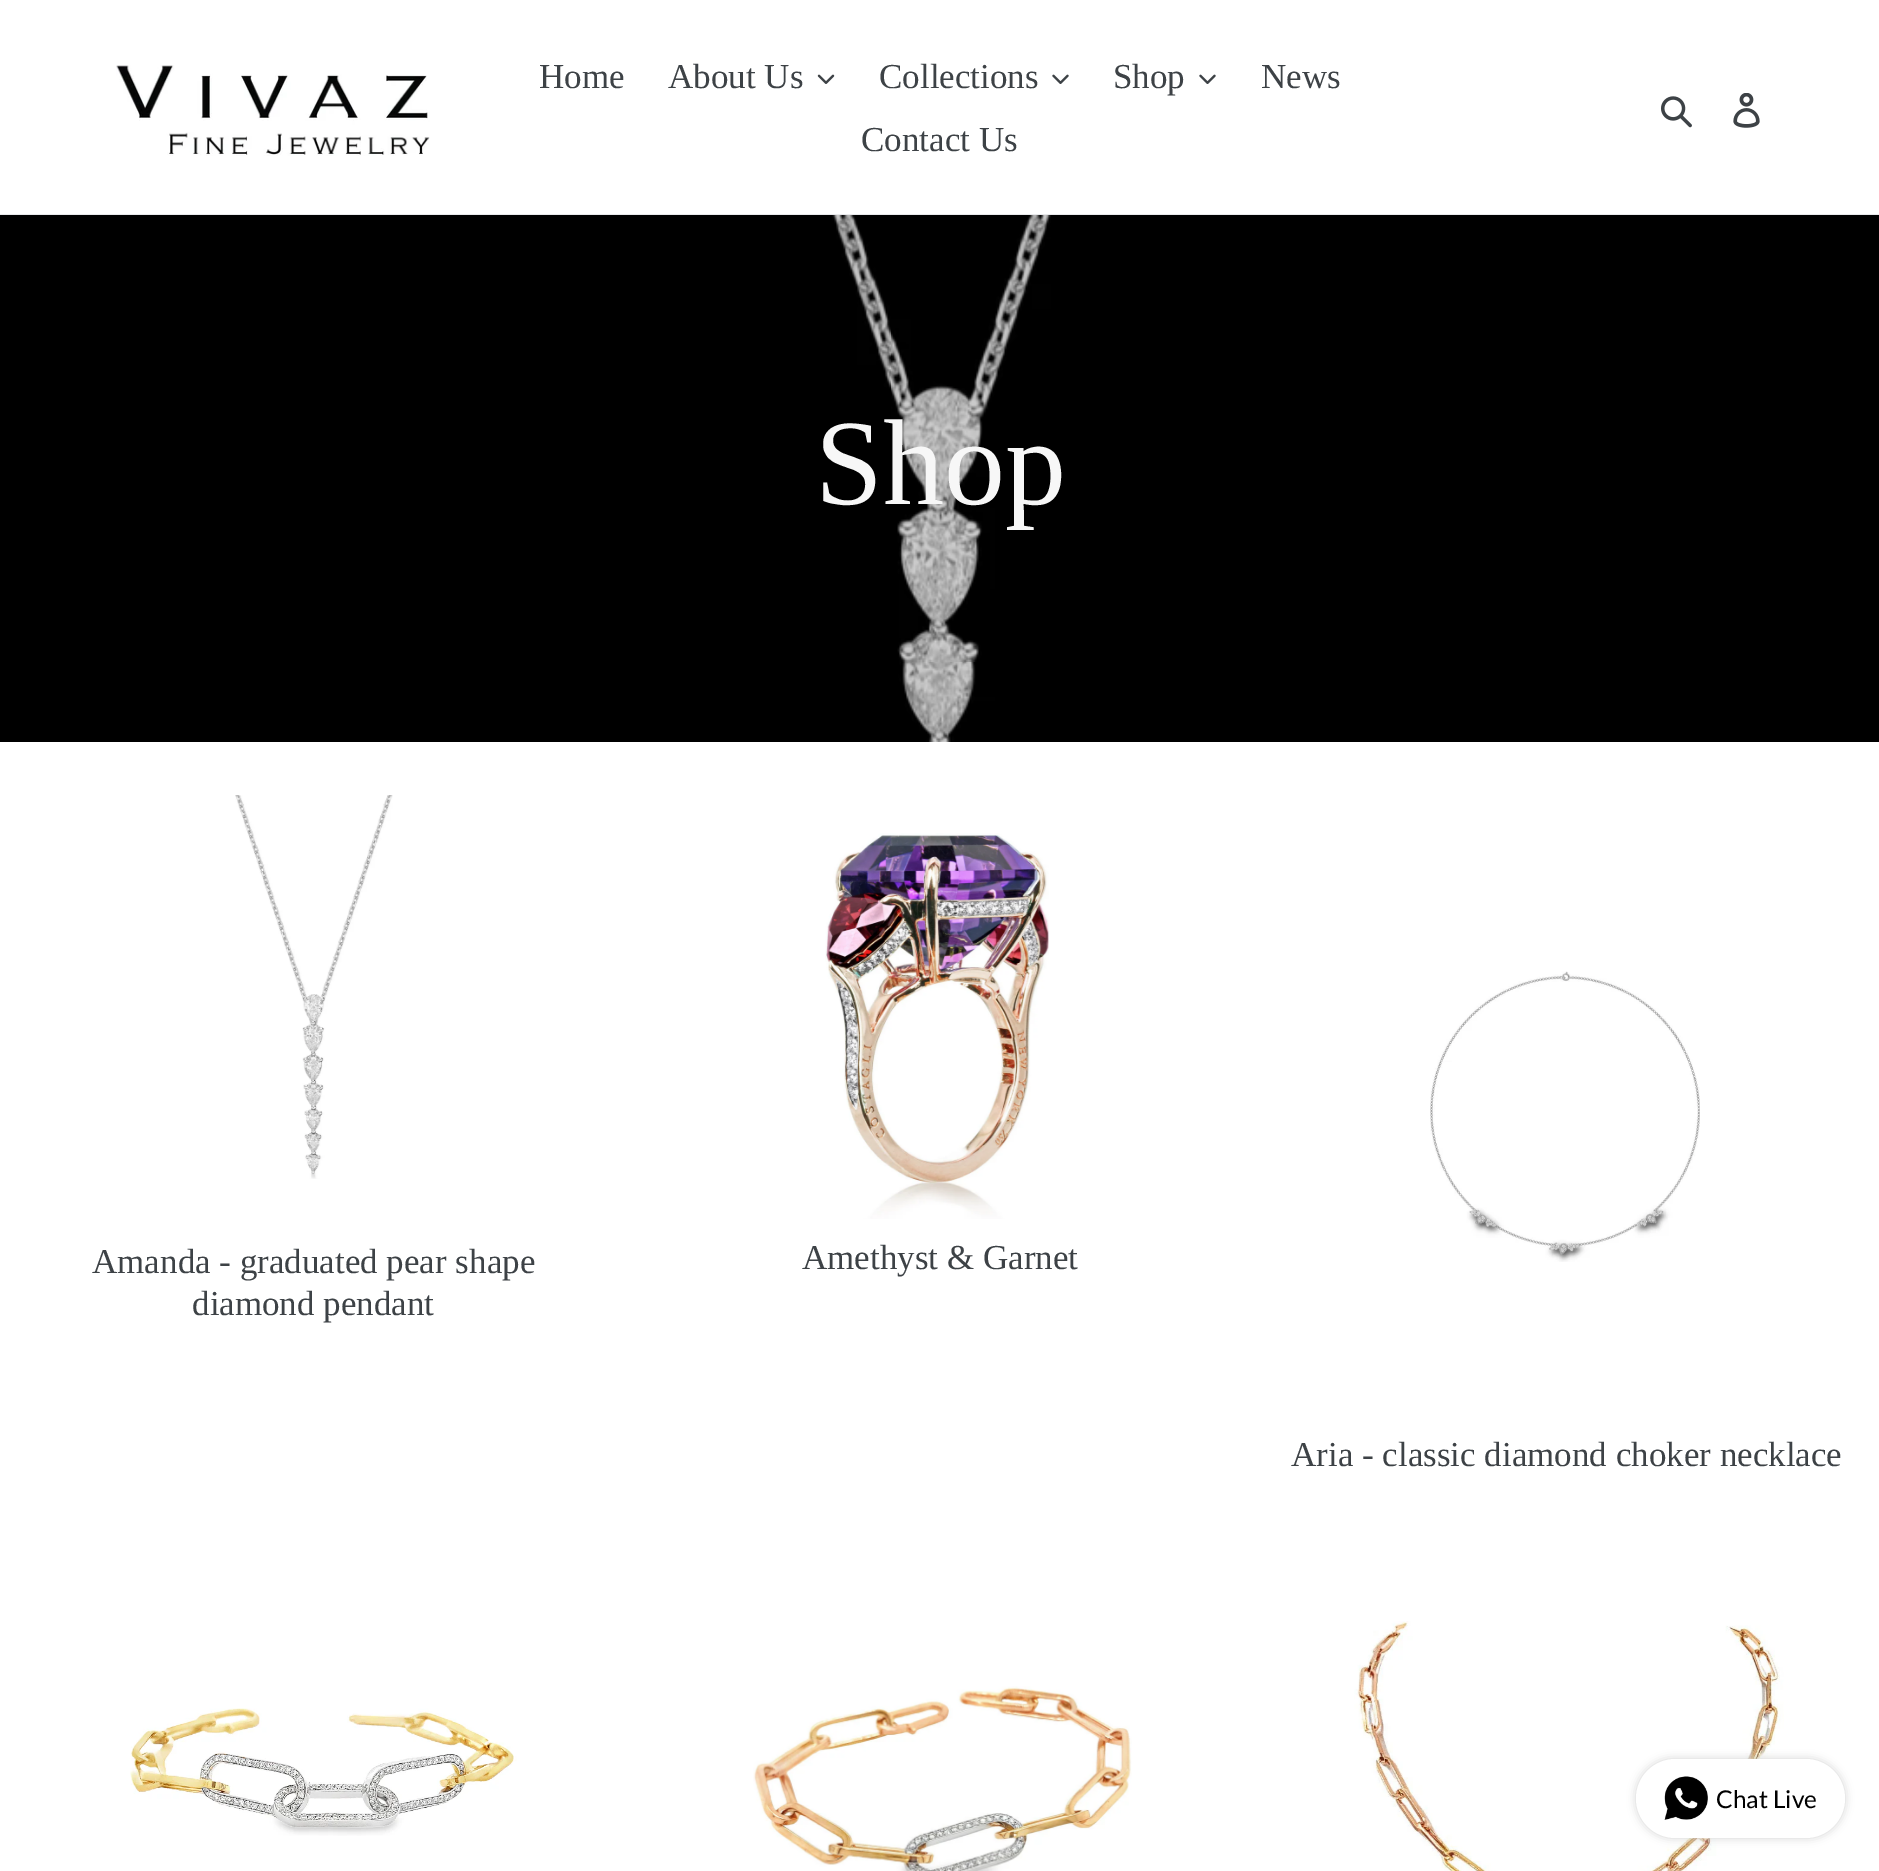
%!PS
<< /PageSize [1879 1871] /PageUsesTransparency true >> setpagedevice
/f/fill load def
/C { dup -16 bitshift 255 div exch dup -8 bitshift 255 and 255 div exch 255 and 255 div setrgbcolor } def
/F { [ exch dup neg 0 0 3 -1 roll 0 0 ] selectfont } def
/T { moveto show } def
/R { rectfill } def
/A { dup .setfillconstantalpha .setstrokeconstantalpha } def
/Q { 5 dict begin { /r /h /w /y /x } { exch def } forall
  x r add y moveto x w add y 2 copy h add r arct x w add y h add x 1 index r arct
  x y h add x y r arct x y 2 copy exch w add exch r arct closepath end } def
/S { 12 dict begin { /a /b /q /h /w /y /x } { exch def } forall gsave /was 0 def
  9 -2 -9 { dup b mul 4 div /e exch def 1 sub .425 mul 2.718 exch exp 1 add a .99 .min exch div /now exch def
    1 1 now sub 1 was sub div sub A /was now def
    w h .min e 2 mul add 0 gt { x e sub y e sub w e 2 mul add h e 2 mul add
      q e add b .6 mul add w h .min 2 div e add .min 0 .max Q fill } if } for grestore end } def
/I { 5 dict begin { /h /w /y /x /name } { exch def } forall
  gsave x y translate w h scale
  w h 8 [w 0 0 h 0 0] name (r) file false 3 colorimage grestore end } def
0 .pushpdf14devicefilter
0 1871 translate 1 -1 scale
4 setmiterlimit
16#FFFFFF C
0 0 1879 1871 R
16#E8E9EB C
0 214 1879 1 R
(1.rgb) 116 65 314 91 I
/LiberationSerif-Regular 35 F
16#3D4246 C
(Home) 539 88 T
(About Us) 668 88 T
(2.rgb) 817 74 18 10 I
(Collections) 879 88 T
(3.rgb) 1052 74 17 10 I
(Shop) 1113 88 T
(3.rgb) 1199 74 17 10 I
(News) 1261 88 T
(Contact Us) 861 151 T
(4.rgb) 1661 96 31 32 I
(5.rgb) 1733 93 27 35 I
16#000000 C
0 215 1879 527 R
(6.rgb) 832 215 219 527 I
/LiberationSerif-Regular 122 F
16#F7F7F7 C
(Shop) 815 504 T
(7.rgb) 235 795 158 384 I
/LiberationSerif-Regular 35 F
16#3D4246 C
(Amanda - graduated pear shape) 92 1273 T
(diamond pendant) 192 1315 T
(8.rgb) 825 833 224 386 I
(Amethyst & Garnet) 802 1269 T
(9.rgb) 1430 971 270 291 I
(Aria - classic diamond choker necklace) 1291 1466 T
(10.rgb) 130 1708 387 128 I
(11.rgb) 753 1686 379 185 I
(12.rgb) 1354 1621 430 250 I
16#D3D3D3 C
1636 1759 209 79 39.5 4.5 1 S
16#FFFFFF C
1636 1759 209 79 39.5 Q f
(13.rgb) 1664 1776 44 44 I
/Lato-Regular 24.5 F
16#000000 C
(Chat Live) 1716 1808 T
.poppdf14devicefilter showpage
